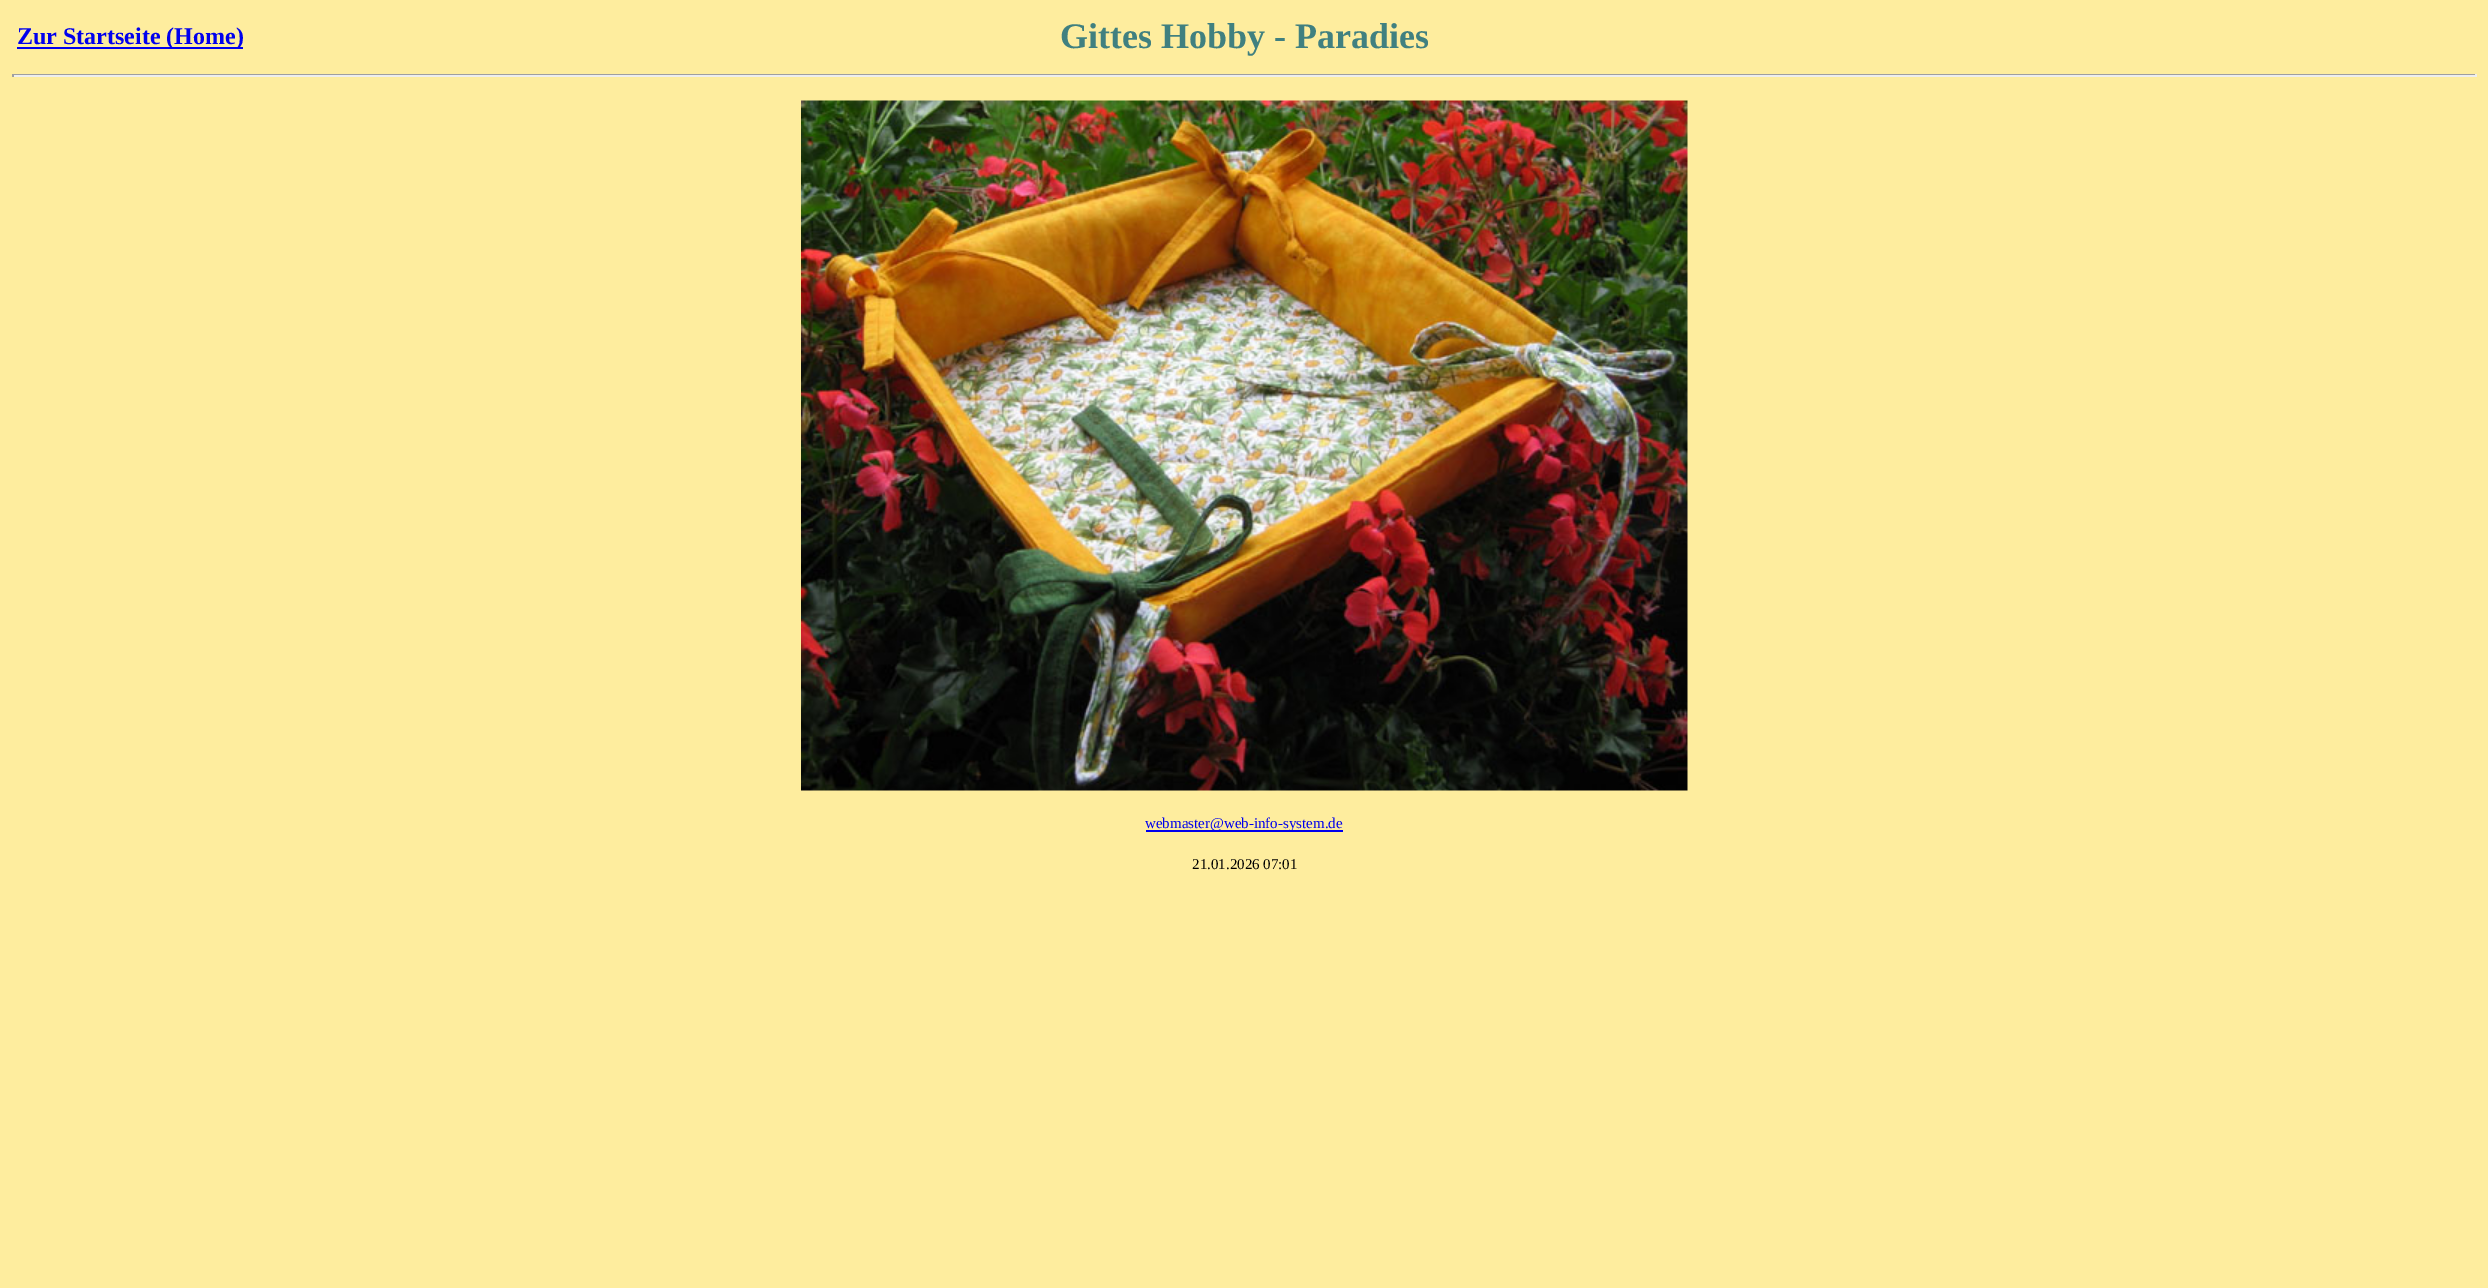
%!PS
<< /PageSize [2488 1288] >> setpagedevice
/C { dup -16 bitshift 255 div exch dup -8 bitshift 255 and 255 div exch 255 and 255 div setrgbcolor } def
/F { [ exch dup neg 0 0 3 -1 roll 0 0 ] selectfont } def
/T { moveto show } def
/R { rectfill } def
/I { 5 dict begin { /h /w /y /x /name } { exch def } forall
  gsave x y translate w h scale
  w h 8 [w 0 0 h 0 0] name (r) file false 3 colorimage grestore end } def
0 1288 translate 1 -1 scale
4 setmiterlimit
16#FEED9E C
0 0 2488 1288 R
16#0000EE C
17 47 226 2 R
/LiberationSerif-Bold 24 F
(Zur Startseite \(Home\)) 17 44 T
/LiberationSerif-Bold 36 F
16#408080 C
(Gittes Hobby - Paradies) 1060 48 T
16#9F9F9F C
12 74 2465 1 R
16#EEEEEE C
2475 74 2 3 R
12 75 2465 2 R
16#9F9F9F C
12 74 2 3 R
(1.rgb) 801 100 887 691 I
16#0000EE C
1146 830 197 2 R
/LiberationSerif-Regular 15 F
(webmaster@web-info-system.de) 1145 828 T
16#000000 C
(21.01.2026 07:01) 1192 869 T
showpage
